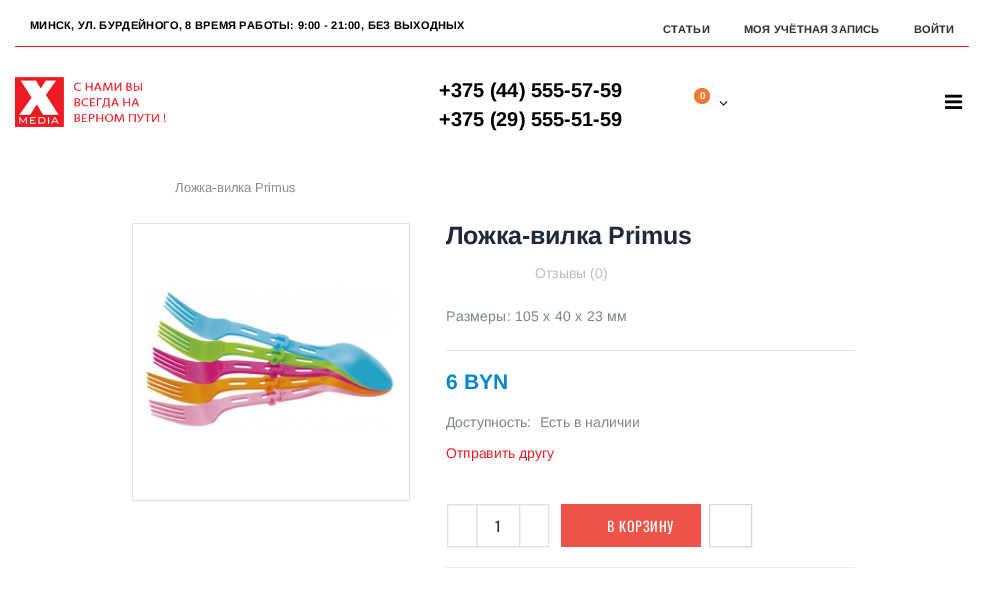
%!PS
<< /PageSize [984 602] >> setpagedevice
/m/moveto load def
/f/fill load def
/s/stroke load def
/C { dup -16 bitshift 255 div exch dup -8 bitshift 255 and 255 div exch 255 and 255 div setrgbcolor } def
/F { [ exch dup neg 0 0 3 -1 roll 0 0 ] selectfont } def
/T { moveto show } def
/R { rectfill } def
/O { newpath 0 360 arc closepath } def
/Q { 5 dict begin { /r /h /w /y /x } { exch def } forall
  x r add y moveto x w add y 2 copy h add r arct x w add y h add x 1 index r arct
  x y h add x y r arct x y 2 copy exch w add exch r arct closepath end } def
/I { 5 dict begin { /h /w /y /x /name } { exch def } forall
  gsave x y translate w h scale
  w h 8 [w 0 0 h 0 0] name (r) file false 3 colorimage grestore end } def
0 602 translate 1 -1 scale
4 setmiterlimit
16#FFFFFF C
0 0 984 602 R
16#ED1B24 C
15 46 954 1 R
/LiberationSans-Bold 11 F
16#000000 C
30 29 m .28 0 (МИНСК, УЛ. БУРДЕЙНОГО, 8 ВРЕМЯ РАБОТЫ: 9:00 - 21:00, БЕЗ ВЫХОДНЫХ) ashow
16#333333 C
663 33 m .28 0 (СТАТЬИ) ashow
744 33 m .28 0 (МОЯ УЧЁТНАЯ ЗАПИСЬ) ashow
914 33 m .28 0 (ВОЙТИ) ashow
(1.rgb) 15 77 151 50 I
/LiberationSans-Bold 20 F
16#000000 C
(+375 \(44\) 555-57-59) 439 97 T
(+375 \(29\) 555-51-59) 439 126 T
16#F17734 C
702 96 8 O f
/LiberationSans-Bold 10 F
16#FFFFFF C
(0) 700 99 T
(2.rgb) 719 101 9 5 I
(3.rgb) 945 94 18 15 I
/LiberationSans-Regular 13 F
16#8E8E8E C
(Ложка-вилка Primus) 175 192 T
16#DAE2E6 C
132.5 223.5 277 277 1.5 Q s
(4.rgb) 133 224 276 276 I
/LiberationSans-Bold 25 F
16#21293C C
446 244 m -.25 0 (Ложка-вилка Primus) ashow
/LiberationSans-Regular 14 F
16#BDBDBD C
(Отзывы \(0\)) 535 278 T
16#DAE2E6 C
446 350 409 1 R
16#7B858A C
446 321 m .28 0 (Размеры: 105 x 40 x 23 мм) ashow
/LiberationSans-Bold 21 F
16#0087CB C
(6 BYN) 446 389 T
/LiberationSans-Regular 14 F
16#7B858A C
(Доступность:) 446 427 T
(Есть в наличии) 540 427 T
16#ED1B24 C
(Отправить другу) 446 458 T
16#EBEBEB C
446 567 409 1 R
16#DAE2E6 C
476.5 504.5 43 42 rectstroke
447.5 504.5 29 42 rectstroke
519.5 504.5 29 42 rectstroke
/Oswald-Regular 14 F
16#21293C C
(1) 495 532 T
16#ED5348 C
561 504 140 43 R
16#FFFFFF C
607 532 m .75 0 (В КОРЗИНУ) ashow
16#D8D8D6 C
709.5 504.5 42 42 rectstroke
showpage
